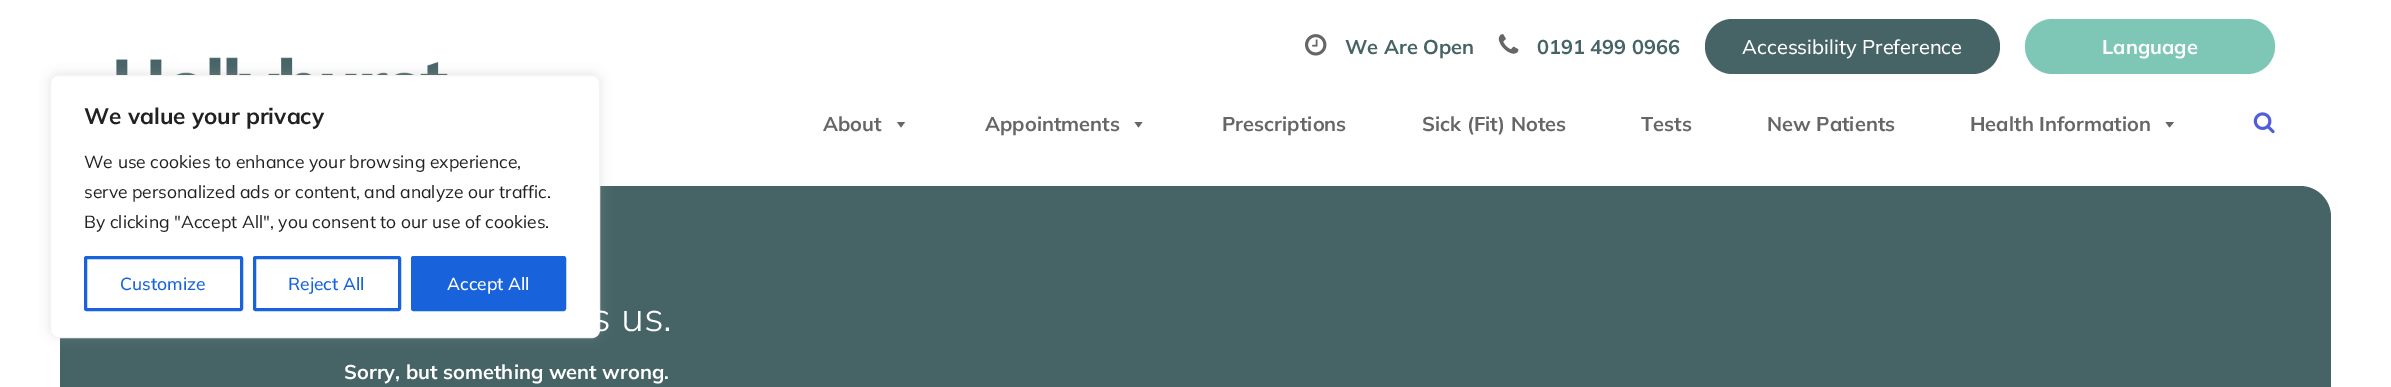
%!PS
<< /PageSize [2391 387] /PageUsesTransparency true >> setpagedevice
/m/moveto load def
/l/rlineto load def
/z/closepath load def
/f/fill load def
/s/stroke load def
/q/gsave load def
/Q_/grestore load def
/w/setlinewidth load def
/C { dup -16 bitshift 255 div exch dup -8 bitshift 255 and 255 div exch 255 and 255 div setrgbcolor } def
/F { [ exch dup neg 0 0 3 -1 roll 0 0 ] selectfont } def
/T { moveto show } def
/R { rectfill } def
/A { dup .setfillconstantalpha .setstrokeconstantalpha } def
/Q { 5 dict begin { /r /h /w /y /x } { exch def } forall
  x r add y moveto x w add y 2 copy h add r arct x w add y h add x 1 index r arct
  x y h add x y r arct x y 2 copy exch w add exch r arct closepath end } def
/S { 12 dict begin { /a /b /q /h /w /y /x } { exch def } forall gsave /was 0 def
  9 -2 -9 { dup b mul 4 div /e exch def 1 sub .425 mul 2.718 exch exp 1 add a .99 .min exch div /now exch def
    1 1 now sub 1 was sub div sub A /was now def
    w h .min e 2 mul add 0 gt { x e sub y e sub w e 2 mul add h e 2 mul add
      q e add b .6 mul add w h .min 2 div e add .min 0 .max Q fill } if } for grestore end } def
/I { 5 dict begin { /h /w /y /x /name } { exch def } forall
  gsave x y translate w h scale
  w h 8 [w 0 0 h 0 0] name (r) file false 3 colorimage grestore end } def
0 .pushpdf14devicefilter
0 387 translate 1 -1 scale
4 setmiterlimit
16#FFFFFF C
0 0 2391 387 R
(1.rgb) 116 57 332 18 I
(2.rgb) 1305 34 22 22 I
/Mulish-Bold 20 F
16#466365 C
(We Are Open) 1345 54 T
(3.rgb) 1498 34 21 20 I
(0191 499 0966) 1537 54 T
1705 19 295 55 27.5 Q f
/Mulish-Medium 20 F
16#FFFFFF C
(Accessibility Preference) 1742 54 T
16#7EC7B6 C
2025 19 250 55 27.5 Q f
/Mulish-Bold 20 F
16#FFFFFF C
(Language) 2102 54 T
16#666666 C
(About) 823 131 T
905 122 m -4 5.5 l -4 -5.5 l z f
(Appointments) 985 131 T
1142.5 122 m -4 5.5 l -4 -5.5 l z f
(Prescriptions) 1222 131 T
(Sick \(Fit\) Notes) 1422 131 T
(Tests) 1641 131 T
(New Patients) 1767 131 T
(Health Information) 1970 131 T
2174 122 m -4.5 5.5 l -4 -5.5 l z f
(4.rgb) 2253 112 22 22 I
16#466365 C
60 186 2271 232 31 Q f
16#ACABAB C
50 74 550 262 8 6 .3 S
16#FFFFFF C
50.5 75.5 549 262 7.5 Q q f Q_
16#F4F4F4 C
s
/Mulish-Bold 22.5 F
16#212121 C
(We value your privacy) 84 124 T
/Mulish-Regular 17.5 F
(We use cookies to enhance your browsing experience,) 84 168 T
(serve personalized ads or content, and analyze our traffic.) 84 198 T
(By clicking "Accept All", you consent to our use of cookies.) 84 228 T
16#1863DC C
3 w
85.5 257.5 156 52 1 Q s
/Mulish-Medium 17.5 F
(Customize) 120 290 T
254.5 257.5 145 52 1 Q s
(Reject All) 288 290 T
412.5 257.5 152 52 1 Q q f Q_
s
16#FFFFFF C
(Accept All) 447 290 T
/Mulish-Light 40 F
(s us.) 591 331 T
/Mulish-Bold 20 F
(Sorry, but something went wrong.) 344 379 T
.poppdf14devicefilter showpage
